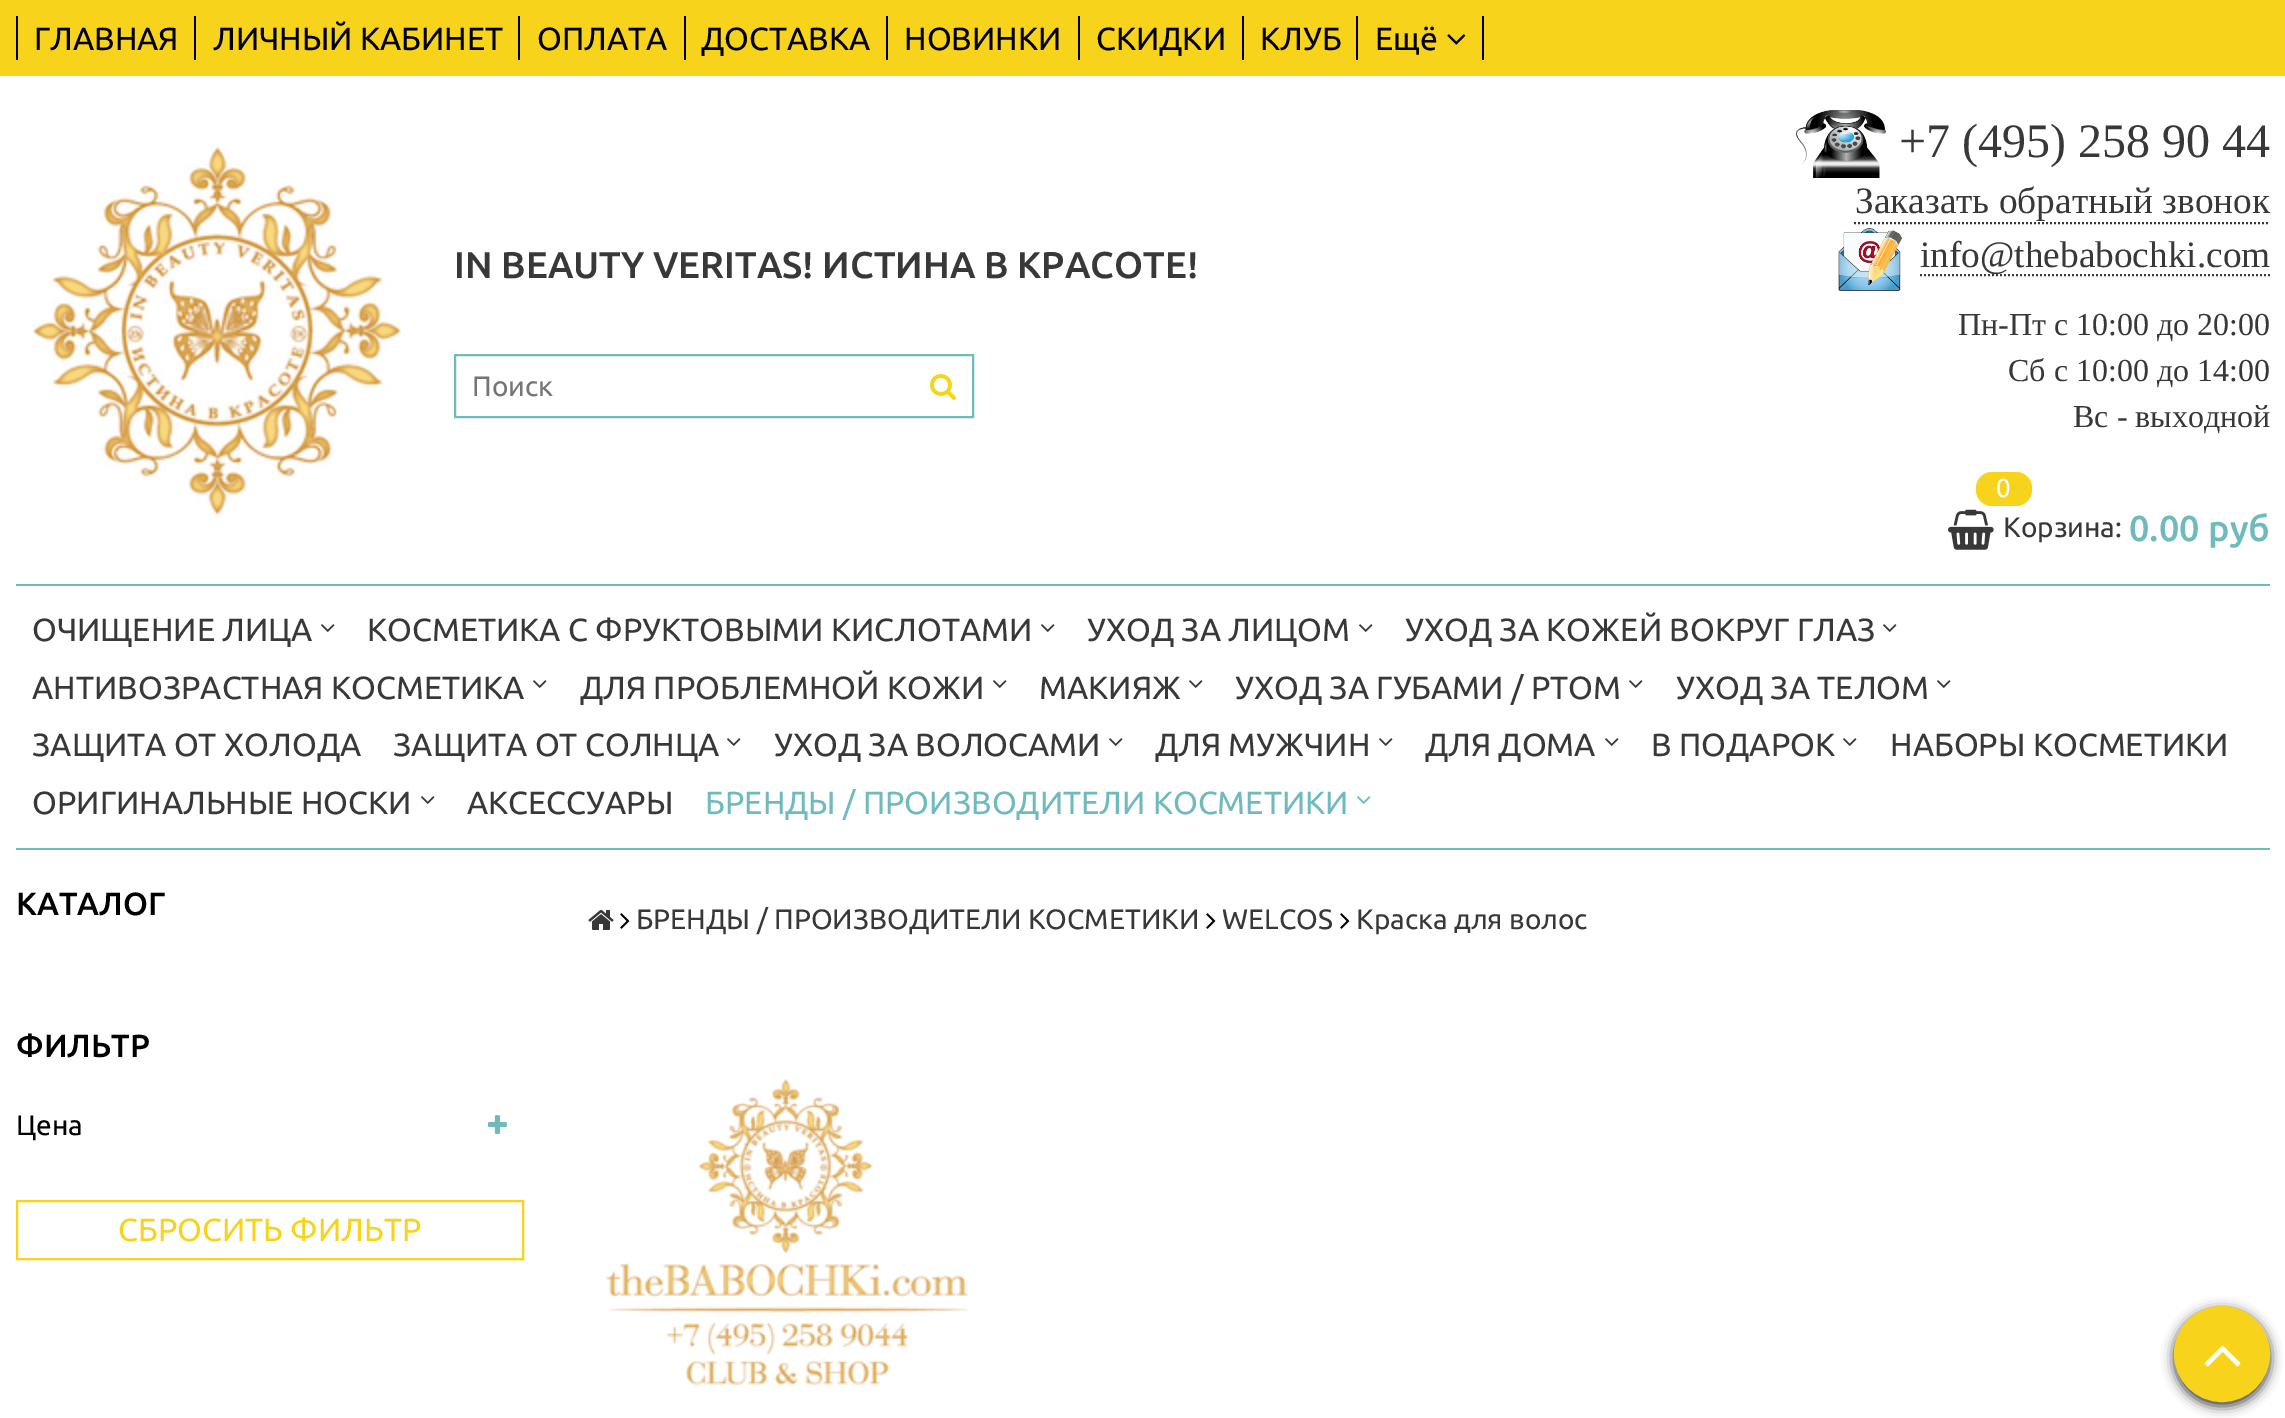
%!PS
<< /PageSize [2285 1418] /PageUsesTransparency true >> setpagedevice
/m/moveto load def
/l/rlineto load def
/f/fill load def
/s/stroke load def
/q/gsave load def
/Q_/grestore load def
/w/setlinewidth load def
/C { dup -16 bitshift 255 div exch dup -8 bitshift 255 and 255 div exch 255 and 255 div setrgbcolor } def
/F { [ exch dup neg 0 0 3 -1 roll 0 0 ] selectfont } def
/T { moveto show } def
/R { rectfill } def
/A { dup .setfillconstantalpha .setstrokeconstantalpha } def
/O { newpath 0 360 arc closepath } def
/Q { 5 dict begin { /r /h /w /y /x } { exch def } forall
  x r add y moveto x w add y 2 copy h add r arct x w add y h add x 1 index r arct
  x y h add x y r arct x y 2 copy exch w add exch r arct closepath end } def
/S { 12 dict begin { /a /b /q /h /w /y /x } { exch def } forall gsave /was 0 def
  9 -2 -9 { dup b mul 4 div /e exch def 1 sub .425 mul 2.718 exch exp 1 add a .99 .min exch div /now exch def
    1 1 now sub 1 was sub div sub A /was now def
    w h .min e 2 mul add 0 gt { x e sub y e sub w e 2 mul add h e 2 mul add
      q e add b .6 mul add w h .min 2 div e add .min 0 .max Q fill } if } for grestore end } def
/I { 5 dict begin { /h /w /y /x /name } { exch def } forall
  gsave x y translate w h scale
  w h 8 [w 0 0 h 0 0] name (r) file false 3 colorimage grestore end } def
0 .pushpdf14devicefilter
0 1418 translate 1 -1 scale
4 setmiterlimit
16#FFFFFF C
0 0 2285 1418 R
16#F7D31B C
0 0 2285 76 R
16#000000 C
16 16 2 44 R
/Ubuntu-Regular 32 F
(ГЛАВНАЯ) 34 50 T
194 16 2 44 R
(ЛИЧНЫЙ КАБИНЕТ) 213 50 T
518 16 2 44 R
(ОПЛАТА) 537 50 T
684 16 2 44 R
(ДОСТАВКА) 701 50 T
886 16 2 44 R
(НОВИНКИ) 904 50 T
1078 16 2 44 R
(СКИДКИ) 1096 50 T
1242 16 2 44 R
(КЛУБ) 1260 50 T
1482 16 2 44 R
1356 16 2 44 R
(Ещё) 1375 50 T
(1.rgb) 1447 34 19 11 I
(2.rgb) 33 147 368 368 I
/Ubuntu-Medium 37.3 F
16#383838 C
(IN BEAUTY VERITAS! ИСТИНА В КРАСОТЕ!) 454 278 T
16#6EBABD C
2 w
455 355 518 62 rectstroke
/Ubuntu-Regular 28 F
16#757575 C
(Поиск) 472 396 T
(3.rgb) 930 374 26 26 I
(4.rgb) 1796 110 90 68 I
/LiberationSerif-Regular 48 F
16#383838 C
(+7 \(495\) 258 90 44) 1899 157 T
/LiberationSerif-Regular 37.3 F
(Заказать обратный звонок) 1855 213 T
[2 2] 0 setdash
1854 223 m 416 0 l s
(5.rgb) 1838 228 64 63 I
1920 275 m 350 0 l s
(info@thebabochki.com) 1920 267 T
/LiberationSerif-Regular 32 F
(Пн-Пт с 10:00 до 20:00) 1958 335 T
(Сб с 10:00 до 14:00) 2008 381 T
(Вс - выходной) 2073 427 T
16#F7D31B C
1976 472 56 34 16 Q f
/Ubuntu-Regular 26 F
16#FFFFFF C
(0) 1996 497 T
(6.rgb) 1948 509 46 41 I
/Ubuntu-Regular 28 F
16#383838 C
(Корзина:) 2003 537 T
/Ubuntu-Medium 36 F
16#6EBABD C
(0.00 руб) 2129 541 T
16 584 2254 2 R
16 848 2254 2 R
/Ubuntu-Regular 32 F
16#383838 C
(ОЧИЩЕНИЕ ЛИЦА) 32 641 T
(7.rgb) 321 624 14 8 I
(КОСМЕТИКА С ФРУКТОВЫМИ КИСЛОТАМИ) 367 641 T
(7.rgb) 1041 624 14 8 I
(УХОД ЗА ЛИЦОМ) 1087 641 T
(7.rgb) 1359 624 14 8 I
(УХОД ЗА КОЖЕЙ ВОКРУГ ГЛАЗ) 1405 641 T
(7.rgb) 1883 624 14 8 I
(АНТИВОЗРАСТНАЯ КОСМЕТИКА) 32 699 T
(7.rgb) 533 680 14 8 I
(ДЛЯ ПРОБЛЕМНОЙ КОЖИ) 580 699 T
(7.rgb) 993 680 14 8 I
(МАКИЯЖ) 1039 699 T
(7.rgb) 1189 680 14 8 I
(УХОД ЗА ГУБАМИ / РТОМ) 1235 699 T
(7.rgb) 1629 680 14 8 I
(УХОД ЗА ТЕЛОМ) 1676 699 T
(7.rgb) 1937 680 14 8 I
(ЗАЩИТА ОТ ХОЛОДА) 32 756 T
(ЗАЩИТА ОТ СОЛНЦА) 393 756 T
(7.rgb) 727 738 14 8 I
(УХОД ЗА ВОЛОСАМИ) 774 756 T
(7.rgb) 1109 738 14 8 I
(ДЛЯ МУЖЧИН) 1155 756 T
(7.rgb) 1379 738 14 8 I
(ДЛЯ ДОМА) 1425 756 T
(7.rgb) 1605 738 14 8 I
(В ПОДАРОК) 1651 756 T
(7.rgb) 1843 738 14 8 I
(НАБОРЫ КОСМЕТИКИ) 1890 756 T
(ОРИГИНАЛЬНЫЕ НОСКИ) 32 814 T
(7.rgb) 421 796 14 8 I
(АКСЕССУАРЫ) 467 814 T
16#6EBABD C
(БРЕНДЫ / ПРОИЗВОДИТЕЛИ КОСМЕТИКИ) 705 814 T
(8.rgb) 1357 796 14 8 I
/Ubuntu-Medium 32 F
16#000000 C
(КАТАЛОГ) 16 915 T
(ФИЛЬТР) 16 1057 T
/Ubuntu-Regular 28 F
(Цена) 16 1135 T
(9.rgb) 488 1115 19 19 I
16#F7D31B C
[] 0 setdash
17 1201 506 58 rectstroke
/Ubuntu-Regular 32 F
(СБРОСИТЬ ФИЛЬТР) 118 1241 T
(10.rgb) 588 910 26 20 I
(11.rgb) 620 913 10 16 I
/Ubuntu-Regular 28 F
16#383838 C
(БРЕНДЫ / ПРОИЗВОДИТЕЛИ КОСМЕТИКИ) 636 929 T
(11.rgb) 1206 913 10 16 I
(WELCOS) 1222 929 T
(11.rgb) 1340 913 10 16 I
(Краска для волос) 1356 929 T
(12.rgb) 606 1079 363 307 I
16#333333 C
2174 1310 96 96 48 6 1 S
16#F7D31B C
2222 1354 47 O q f Q_
s
(13.rgb) 2204 1345 37 22 I
.poppdf14devicefilter showpage
